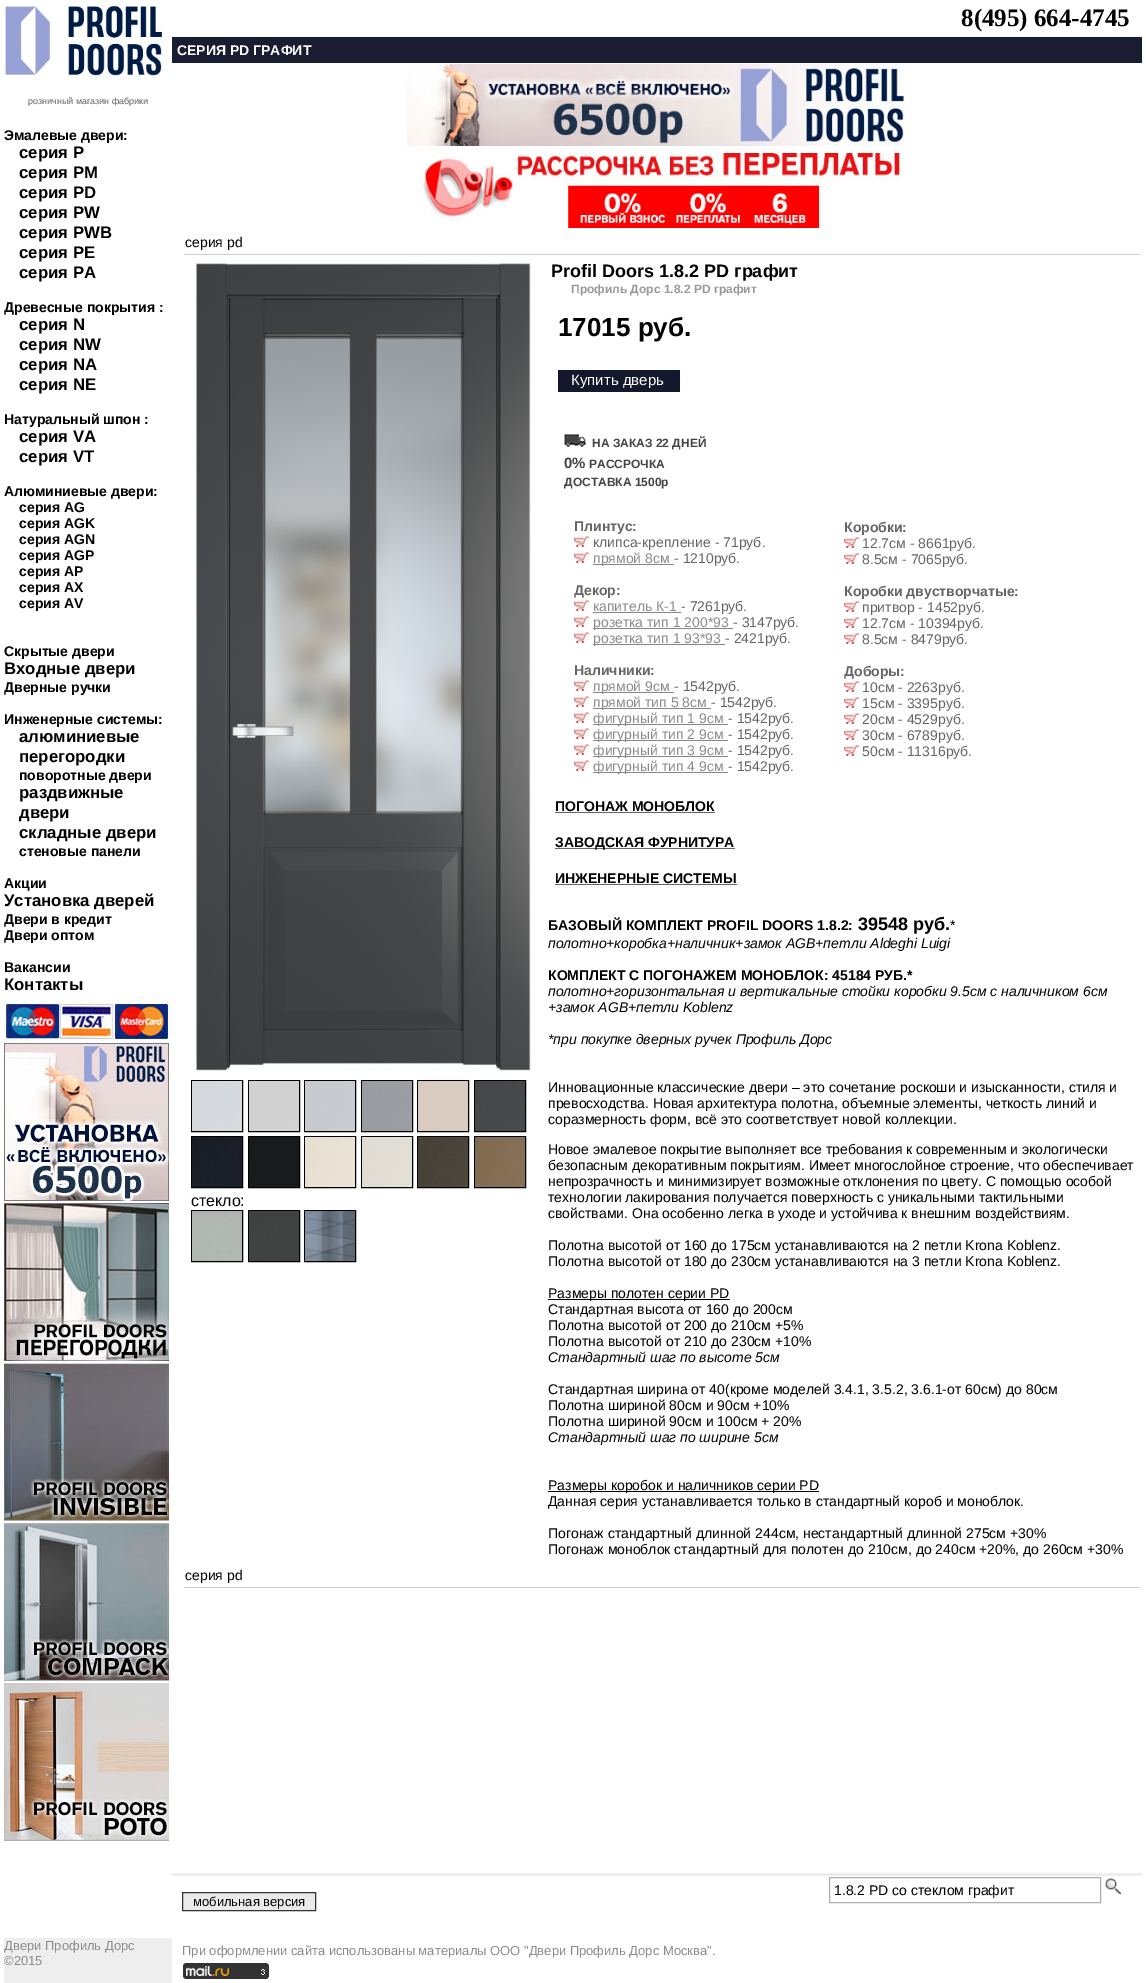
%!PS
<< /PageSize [1146 1983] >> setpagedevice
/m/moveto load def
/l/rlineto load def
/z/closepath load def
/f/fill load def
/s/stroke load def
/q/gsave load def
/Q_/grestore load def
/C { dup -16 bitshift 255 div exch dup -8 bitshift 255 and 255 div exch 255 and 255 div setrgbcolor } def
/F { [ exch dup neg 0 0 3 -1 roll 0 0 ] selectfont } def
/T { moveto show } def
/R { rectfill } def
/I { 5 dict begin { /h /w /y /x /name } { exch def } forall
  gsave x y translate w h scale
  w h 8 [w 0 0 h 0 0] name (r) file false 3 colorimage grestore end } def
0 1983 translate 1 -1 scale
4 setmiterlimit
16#FFFFFF C
0 0 1146 1983 R
(1.rgb) 5 5 157 71 I
/LiberationSans-Regular 9 F
16#666666 C
(розничный магазин фабрики) 28 104 T
/LiberationSans-Bold 14 F
16#000000 C
(Эмалевые двери:) 4 140 T
/LiberationSans-Bold 16.75 F
(серия P) 19 158 T
(серия PM) 19 178 T
(серия PD) 19 198 T
(серия PW) 19 218 T
(серия PWB) 19 238 T
(серия PE) 19 258 T
(серия PA) 19 278 T
/LiberationSans-Bold 14 F
(Древесные покрытия :) 4 312 T
/LiberationSans-Bold 16.75 F
(серия N) 19 330 T
(серия NW) 19 350 T
(серия NA) 19 370 T
(серия NE) 19 390 T
/LiberationSans-Bold 14 F
(Натуральный шпон :) 4 424 T
/LiberationSans-Bold 16.75 F
(серия VA) 19 442 T
(серия VT) 19 462 T
/LiberationSans-Bold 14 F
(Алюминиевые двери:) 4 496 T
(серия AG) 19 512 T
(серия AGK) 19 528 T
(серия AGN) 19 544 T
(серия AGP) 19 560 T
(серия AP) 19 576 T
(серия AX) 19 592 T
(серия AV) 19 608 T
(Скрытые двери) 4 656 T
/LiberationSans-Bold 16.75 F
(Входные двери) 4 674 T
/LiberationSans-Bold 14 F
(Дверные ручки) 4 692 T
(Инженерные системы:) 4 724 T
/LiberationSans-Bold 16.75 F
(алюминиевые) 19 742 T
(перегородки) 19 762 T
/LiberationSans-Bold 14 F
(поворотные двери) 19 780 T
/LiberationSans-Bold 16.75 F
(раздвижные) 19 798 T
(двери) 19 818 T
(складные двери) 19 838 T
/LiberationSans-Bold 14 F
(стеновые панели) 19 856 T
(Акции) 4 888 T
/LiberationSans-Bold 16.75 F
(Установка дверей) 4 906 T
/LiberationSans-Bold 14 F
(Двери в кредит) 4 924 T
(Двери оптом) 4 940 T
(Вакансии) 4 972 T
/LiberationSans-Bold 16.75 F
(Контакты) 4 990 T
(2.rgb) 4 1000 166 40 I
(3.rgb) 4 1042 166 160 I
(4.rgb) 4 1202 166 160 I
(5.rgb) 4 1363 166 159 I
(6.rgb) 4 1522 166 160 I
(7.rgb) 4 1682 166 160 I
16#EEEEEE C
4 1938 168 45 R
/LiberationSans-Regular 13 F
16#8C8C8C C
(Двери Профиль Дорс) 4 1950 T
(©2015) 4 1965 T
/LiberationSerif-Bold 25 F
16#000000 C
(8\(495\) 664-4745) 961 26 T
16#181D31 C
172 37 970 26 R
/LiberationSans-Bold 14 F
16#FFFFFF C
(СЕРИЯ PD ГРАФИТ) 177 55 T
(8.rgb) 407 64 497 82 I
(9.rgb) 421 153 483 75 I
16#CECECE C
184 254 956 1 R
/LiberationSans-Regular 14 F
16#000000 C
(серия pd) 185 247 T
/LiberationSans-Bold 18 F
(Profil Doors 1.8.2 PD графит) 551 277 T
/LiberationSans-Bold 12 F
16#999999 C
(Профиль Дорс 1.8.2 PD графит) 571 293 T
/LiberationSans-Bold 26 F
16#000000 C
(17015 руб.) 558 336 T
16#13182D C
558 370 122 22 R
/LiberationSans-Regular 15 F
16#FFFFFF C
(Купить дверь) 571 385 T
(10.rgb) 564 434 22 13 I
/LiberationSans-Bold 12 F
16#454545 C
(НА ЗАКАЗ 22 ДНЕЙ) 592 447 T
/LiberationSans-Bold 15 F
(0%) 564 468 T
/LiberationSans-Bold 12 F
(РАССРОЧКА) 589 468 T
(ДОСТАВКА 1500р) 564 486 T
(11.rgb) 195 263 336 808 I
16#000000 C
191.5 1080.5 51 51 rectstroke
(12.rgb) 192 1081 50 50 I
248.5 1080.5 51 51 rectstroke
(13.rgb) 249 1081 50 50 I
304.5 1080.5 51 51 rectstroke
(14.rgb) 305 1081 50 50 I
361.5 1080.5 51 51 rectstroke
(15.rgb) 362 1081 50 50 I
417.5 1080.5 51 51 rectstroke
(16.rgb) 418 1081 50 50 I
474.5 1080.5 51 51 rectstroke
(17.rgb) 475 1081 50 50 I
191.5 1136.5 51 51 rectstroke
(18.rgb) 192 1137 50 50 I
248.5 1136.5 51 51 rectstroke
(19.rgb) 249 1137 50 50 I
304.5 1136.5 51 51 rectstroke
(20.rgb) 305 1137 50 50 I
361.5 1136.5 51 51 rectstroke
(21.rgb) 362 1137 50 50 I
417.5 1136.5 51 51 rectstroke
(22.rgb) 418 1137 50 50 I
474.5 1136.5 51 51 rectstroke
(23.rgb) 475 1137 50 50 I
/LiberationSans-Regular 16 F
(стекло:) 191 1206 T
191.5 1210.5 51 51 rectstroke
(24.rgb) 192 1211 50 50 I
248.5 1210.5 51 51 rectstroke
(25.rgb) 249 1211 50 50 I
304.5 1210.5 51 51 rectstroke
(26.rgb) 305 1211 50 50 I
/LiberationSans-Bold 14 F
16#666666 C
(Плинтус:) 574 531 T
(27.rgb) 574 536 15 11 I
/LiberationSans-Regular 14 F
(клипса-крепление - 71руб.) 593 547 T
(27.rgb) 574 552 15 11 I
16#888888 C
593 564 81 1 R
16#8C8C8C C
(прямой 8см) 593 563 T
16#666666 C
(- 1210руб.) 674 563 T
/LiberationSans-Bold 14 F
(Декор:) 574 595 T
(27.rgb) 574 600 15 11 I
/LiberationSans-Regular 14 F
16#8C8C8C C
(капитель К-1) 593 611 T
16#888888 C
593 612 88 1 R
16#666666 C
(- 7261руб.) 681 611 T
(27.rgb) 574 616 15 11 I
16#888888 C
593 628 140 1 R
16#8C8C8C C
(розетка тип 1 200*93) 593 627 T
16#666666 C
(- 3147руб.) 733 627 T
(27.rgb) 574 632 15 11 I
16#888888 C
593 644 132 1 R
16#8C8C8C C
(розетка тип 1 93*93) 593 643 T
16#666666 C
(- 2421руб.) 725 643 T
/LiberationSans-Bold 14 F
(Наличники:) 574 675 T
(27.rgb) 574 680 15 11 I
16#888888 C
593 692 81 1 R
/LiberationSans-Regular 14 F
16#8C8C8C C
(прямой 9см) 593 691 T
16#666666 C
(- 1542руб.) 674 691 T
(27.rgb) 574 696 15 11 I
16#888888 C
593 708 118 1 R
16#8C8C8C C
(прямой тип 5 8см) 593 707 T
16#666666 C
(- 1542руб.) 711 707 T
(27.rgb) 574 712 15 11 I
16#888888 C
593 724 135 1 R
16#8C8C8C C
(фигурный тип 1 9см) 593 723 T
16#666666 C
(- 1542руб.) 728 723 T
(27.rgb) 574 728 15 11 I
16#888888 C
593 740 135 1 R
16#8C8C8C C
(фигурный тип 2 9см) 593 739 T
16#666666 C
(- 1542руб.) 728 739 T
(27.rgb) 574 744 15 11 I
16#888888 C
593 756 135 1 R
16#8C8C8C C
(фигурный тип 3 9см) 593 755 T
16#666666 C
(- 1542руб.) 728 755 T
(27.rgb) 574 760 15 11 I
16#888888 C
593 772 135 1 R
16#8C8C8C C
(фигурный тип 4 9см) 593 771 T
16#666666 C
(- 1542руб.) 728 771 T
/LiberationSans-Bold 14 F
(Коробки:) 844 532 T
(27.rgb) 844 537 15 11 I
/LiberationSans-Regular 14 F
(12.7см - 8661руб.) 862 548 T
(27.rgb) 844 553 15 11 I
(8.5см - 7065руб.) 862 564 T
/LiberationSans-Bold 14 F
(Коробки двустворчатые:) 844 596 T
(27.rgb) 844 601 15 11 I
/LiberationSans-Regular 14 F
(притвор - 1452руб.) 862 612 T
(27.rgb) 844 617 15 11 I
(12.7см - 10394руб.) 862 628 T
(27.rgb) 844 633 15 11 I
(8.5см - 8479руб.) 862 644 T
/LiberationSans-Bold 14 F
(Доборы:) 844 676 T
(27.rgb) 844 681 15 11 I
/LiberationSans-Regular 14 F
(10см - 2263руб.) 862 692 T
(27.rgb) 844 697 15 11 I
(15см - 3395руб.) 862 708 T
(27.rgb) 844 713 15 11 I
(20см - 4529руб.) 862 724 T
(27.rgb) 844 729 15 11 I
(30см - 6789руб.) 862 740 T
(27.rgb) 844 745 15 11 I
(50см - 11316руб.) 862 756 T
/LiberationSans-Bold 14 F
16#000000 C
(ПОГОНАЖ МОНОБЛОК) 555 811 T
16#666666 C
555 812 160 1 R
555 848 180 1 R
16#000000 C
(ЗАВОДСКАЯ ФУРНИТУРА) 555 847 T
(ИНЖЕНЕРНЫЕ СИСТЕМЫ) 555 883 T
16#666666 C
555 884 182 1 R
16#000000 C
(БАЗОВЫЙ КОМПЛЕКТ PROFIL DOORS 1.8.2:) 548 930 T
/LiberationSans-Bold 18 F
(39548 руб.) 858 930 T
/LiberationSans-Regular 14 F
(*) 950 930 T
/LiberationSans-Italic 14 F
(полотно+коробка+наличник+замок AGB+петли Aldeghi Luigi) 548 948 T
/LiberationSans-Bold 14 F
(КОМПЛЕКТ С ПОГОНАЖЕМ МОНОБЛОК: 45184 РУБ.*) 548 980 T
/LiberationSans-Italic 14 F
(полотно+горизонтальная и вертикальные стойки коробки 9.5см с наличником 6см) 548 996 T
(+замок AGB+петли Koblenz) 548 1012 T
(*при покупке дверных ручек Профиль Дорс) 548 1044 T
/LiberationSans-Regular 14 F
(Инновационные классические двери – это сочетание роскоши и изысканности, стиля и) 548 1092 T
(превосходства. Новая архитектура полотна, объемные элементы, четкость линий и) 548 1108 T
(соразмерность форм, всё это соответствует новой коллекции.) 548 1124 T
(Новое эмалевое покрытие выполняет все требования к современным и экологически) 548 1154 T
(безопасным декоративным покрытиям. Имеет многослойное строение, что обеспечивает) 548 1170 T
(непрозрачность и минимизирует возможные отклонения по цвету. С помощью особой) 548 1186 T
(технологии лакирования получается поверхность с уникальными тактильными) 548 1202 T
(свойствами. Она особенно легка в уходе и устойчива к внешним воздействиям.) 548 1218 T
(Полотна высотой от 160 до 175см устанавливаются на 2 петли Krona Koblenz.) 548 1250 T
(Полотна высотой от 180 до 230см устанавливаются на 3 петли Krona Koblenz.) 548 1266 T
548 1299 182 1 R
(Размеры полотен серии PD) 548 1298 T
(Стандартная высота от 160 до 200см) 548 1314 T
(Полотна высотой от 200 до 210см +5%) 548 1330 T
(Полотна высотой от 210 до 230см +10%) 548 1346 T
/LiberationSans-Italic 14 F
(Стандартный шаг по высоте 5см) 548 1362 T
/LiberationSans-Regular 14 F
(Стандартная ширина от 40\(кроме моделей 3.4.1, 3.5.2, 3.6.1-от 60см\) до 80см) 548 1394 T
(Полотна шириной 80cм и 90cм +10%) 548 1410 T
(Полотна шириной 90см и 100см + 20%) 548 1426 T
/LiberationSans-Italic 14 F
(Стандартный шаг по ширине 5см) 548 1442 T
548 1491 271 1 R
/LiberationSans-Regular 14 F
(Размеры коробок и наличников серии PD) 548 1490 T
(Данная серия устанавливается только в стандартный короб и моноблок.) 548 1506 T
(Погонаж стандартный длинной 244см, нестандартный длинной 275см +30%) 548 1538 T
(Погонаж моноблок стандартный для полотен до 210см, до 240см +20%, до 260см +30%) 548 1554 T
16#CECECE C
184 1587 956 1 R
16#000000 C
(серия pd) 185 1580 T
16#EEEEEE C
172 1873 970 3 R
16#ADADAD C
829.5 1877.5 271 25 rectstroke
16#000000 C
(1.8.2 PD со стеклом графит) 834 1895 T
(28.rgb) 1105 1878 16 16 I
16#EAEAEA C
182.5 1892.5 m 133 0 l 0 18 l -133 0 l z q f Q_
16#333333 C
s
/LiberationSans-Regular 13 F
16#000000 C
(мобильная версия) 193 1906 T
16#8C8C8C C
(При оформлении сайта использованы материалы ООО "Двери Профиль Дорс Москва".) 182 1955 T
(29.rgb) 183 1963 86 16 I
showpage
